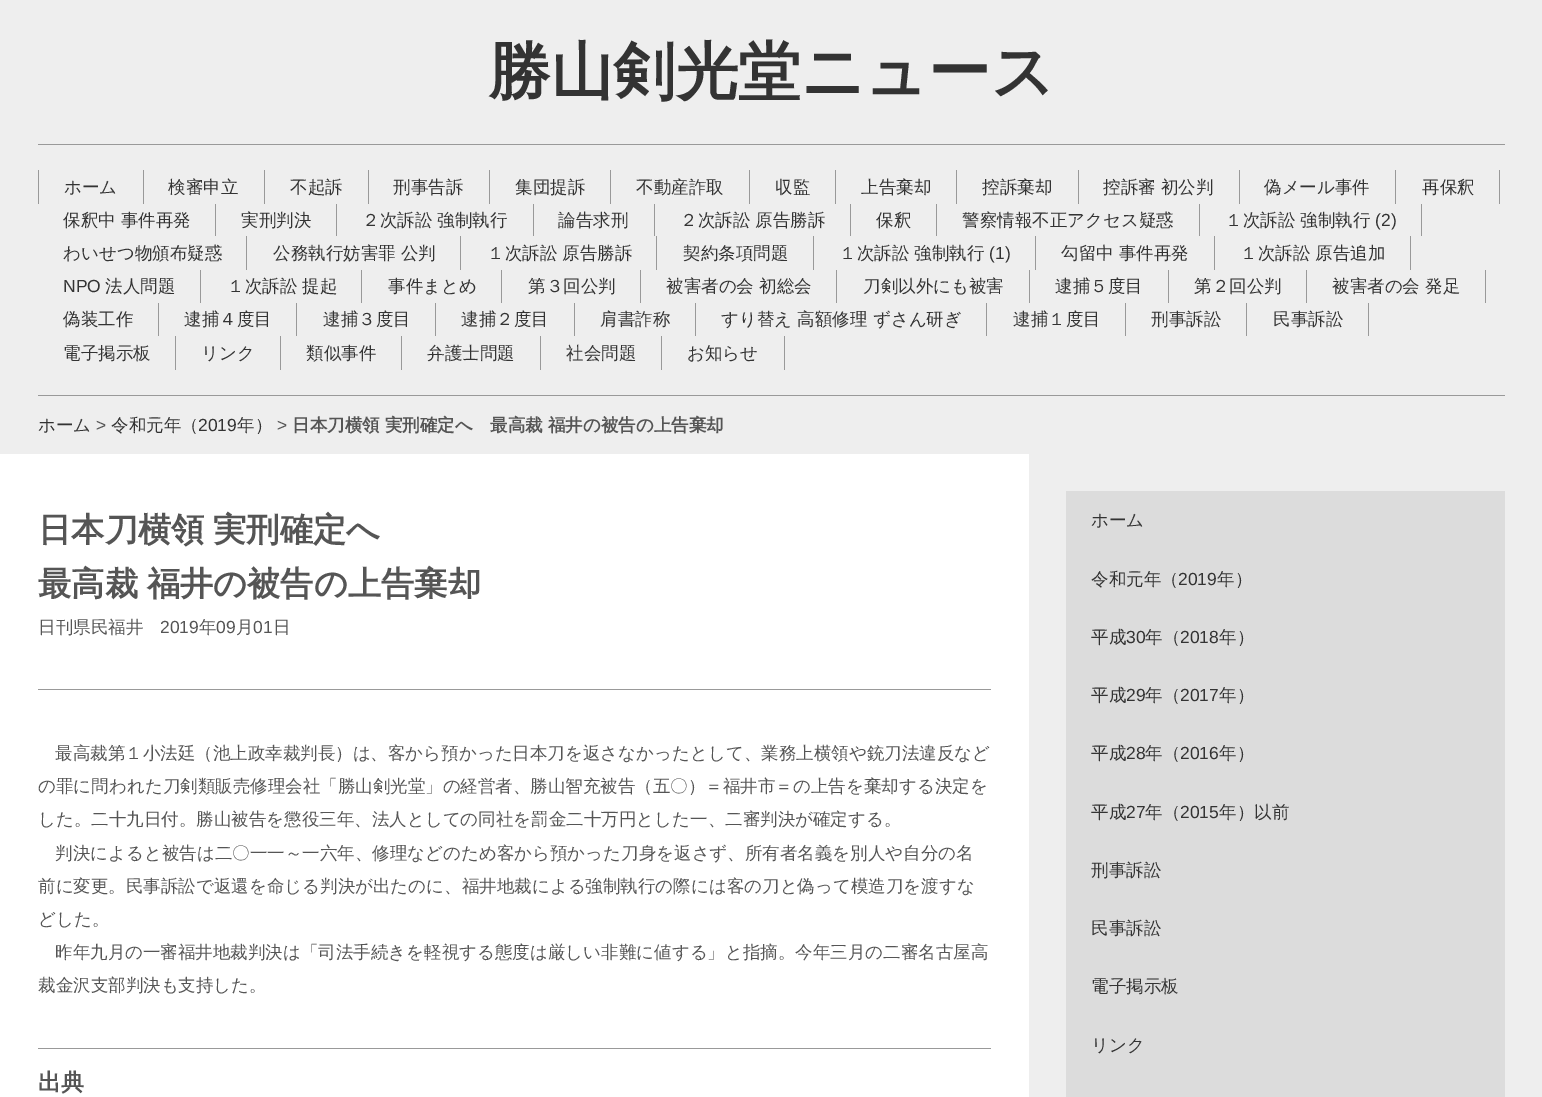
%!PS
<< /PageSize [1542 1097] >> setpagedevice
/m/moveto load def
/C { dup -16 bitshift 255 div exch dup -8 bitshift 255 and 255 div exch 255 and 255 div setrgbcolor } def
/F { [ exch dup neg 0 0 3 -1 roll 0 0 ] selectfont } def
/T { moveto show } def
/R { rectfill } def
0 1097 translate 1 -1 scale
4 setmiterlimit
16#EEEEEE C
0 0 1542 1097 R
/WenQuanYiZenHei-Bold 62.5 F
16#333333 C
(勝山剣光堂ニュース) 488 93 T
16#999999 C
38 144 1467 1 R
143 170 1 34 R
38 170 1 34 R
/WenQuanYiZenHei-Medium 17.5 F
16#333333 C
(ホーム) 64 193 T
16#999999 C
264 170 1 34 R
16#333333 C
(検審申立) 168 193 T
16#999999 C
368 170 1 34 R
16#333333 C
(不起訴) 290 193 T
16#999999 C
489 170 1 34 R
16#333333 C
(刑事告訴) 393 193 T
16#999999 C
610 170 1 34 R
16#333333 C
(集団提訴) 515 193 T
16#999999 C
749 170 1 34 R
16#333333 C
(不動産詐取) 636 193 T
16#999999 C
835 170 1 34 R
16#333333 C
(収監) 775 193 T
16#999999 C
956 170 1 34 R
16#333333 C
(上告棄却) 861 193 T
16#999999 C
1078 170 1 34 R
16#333333 C
(控訴棄却) 982 193 T
16#999999 C
1239 170 1 34 R
16#333333 C
(控訴審 初公判) 1103 193 T
16#999999 C
1395 170 1 34 R
16#333333 C
(偽メール事件) 1264 193 T
16#999999 C
1499 170 1 34 R
16#333333 C
(再保釈) 1422 193 T
16#999999 C
215 204 1 32 R
16#333333 C
(保釈中 事件再発) 63 226 T
16#999999 C
336 204 1 32 R
16#333333 C
(実刑判決) 241 226 T
16#999999 C
533 204 1 32 R
16#333333 C
(２次訴訟 強制執行) 362 226 T
16#999999 C
654 204 1 32 R
16#333333 C
(論告求刑) 558 226 T
16#999999 C
850 204 1 32 R
16#333333 C
(２次訴訟 原告勝訴) 680 226 T
16#999999 C
936 204 1 32 R
16#333333 C
(保釈) 876 226 T
16#999999 C
1199 204 1 32 R
16#333333 C
(警察情報不正アクセス疑惑) 962 226 T
16#999999 C
1421 204 1 32 R
16#333333 C
(１次訴訟 強制執行) 1225 226 T
/LiberationSans-Regular 17.5 F
(\(2\)) 1375 226 T
16#999999 C
246 236 1 34 R
/WenQuanYiZenHei-Medium 17.5 F
16#333333 C
(わいせつ物頒布疑惑) 63 259 T
16#999999 C
460 236 1 34 R
16#333333 C
(公務執行妨害罪 公判) 273 259 T
16#999999 C
656 236 1 34 R
16#333333 C
(１次訴訟 原告勝訴) 487 259 T
16#999999 C
813 236 1 34 R
16#333333 C
(契約条項問題) 683 259 T
16#999999 C
1035 236 1 34 R
16#333333 C
(１次訴訟 強制執行) 839 259 T
/LiberationSans-Regular 17.5 F
(\(1\)) 989 259 T
16#999999 C
1214 236 1 34 R
/WenQuanYiZenHei-Medium 17.5 F
16#333333 C
(勾留中 事件再発) 1061 259 T
16#999999 C
1410 236 1 34 R
16#333333 C
(１次訴訟 原告追加) 1240 259 T
16#999999 C
200 270 1 33 R
/LiberationSans-Regular 17.5 F
16#333333 C
(NPO) 63 292 T
/WenQuanYiZenHei-Medium 17.5 F
(法人問題) 105 292 T
16#999999 C
361 270 1 33 R
16#333333 C
(１次訴訟 提起) 227 292 T
16#999999 C
501 270 1 33 R
16#333333 C
(事件まとめ) 388 292 T
16#999999 C
640 270 1 33 R
16#333333 C
(第３回公判) 528 292 T
16#999999 C
836 270 1 33 R
16#333333 C
(被害者の会 初総会) 666 292 T
16#999999 C
1029 270 1 33 R
16#333333 C
(刀剣以外にも被害) 863 292 T
16#999999 C
1168 270 1 33 R
16#333333 C
(逮捕５度目) 1055 292 T
16#999999 C
1306 270 1 33 R
16#333333 C
(第２回公判) 1194 292 T
16#999999 C
1485 270 1 33 R
16#333333 C
(被害者の会 発足) 1332 292 T
16#999999 C
158 303 1 33 R
16#333333 C
(偽装工作) 63 325 T
16#999999 C
296 303 1 33 R
16#333333 C
(逮捕４度目) 184 325 T
16#999999 C
435 303 1 33 R
16#333333 C
(逮捕３度目) 323 325 T
16#999999 C
574 303 1 33 R
16#333333 C
(逮捕２度目) 461 325 T
16#999999 C
695 303 1 33 R
16#333333 C
(肩書詐称) 600 325 T
16#999999 C
986 303 1 33 R
16#333333 C
(すり替え 高額修理 ずさん研ぎ) 721 325 T
16#999999 C
1125 303 1 33 R
16#333333 C
(逮捕１度目) 1013 325 T
16#999999 C
1246 303 1 33 R
16#333333 C
(刑事訴訟) 1151 325 T
16#999999 C
1368 303 1 33 R
16#333333 C
(民事訴訟) 1273 325 T
16#999999 C
175 336 1 34 R
16#333333 C
(電子掲示板) 63 359 T
16#999999 C
280 336 1 34 R
16#333333 C
(リンク) 201 359 T
16#999999 C
401 336 1 34 R
16#333333 C
(類似事件) 306 359 T
16#999999 C
540 336 1 34 R
16#333333 C
(弁護士問題) 427 359 T
16#999999 C
661 336 1 34 R
16#333333 C
(社会問題) 566 359 T
16#999999 C
784 336 1 34 R
16#333333 C
(お知らせ) 687 359 T
16#999999 C
38 395 1467 1 R
16#333333 C
(ホーム) 38 431 T
/LiberationSans-Regular 17.5 F
16#555555 C
(>) 96 431 T
/WenQuanYiZenHei-Medium 17.5 F
16#333333 C
(令和元年（) 111 431 T
/LiberationSans-Regular 17.5 F
(2019) 198 431 T
/WenQuanYiZenHei-Medium 17.5 F
(年）) 237 431 T
/LiberationSans-Regular 17.5 F
16#555555 C
(>) 277 431 T
/WenQuanYiZenHei-Bold 17.5 F
(日本刀横領 実刑確定へ　最高裁 福井の被告の上告棄却) 292 431 T
16#FFFFFF C
0 454 1029 643 R
/WenQuanYiZenHei-Bold 33.25 F
16#555555 C
38 541 m -1 0 32 (日本刀横領 実刑確定へ) widthshow
38 595 m -1 0 32 (最高裁 福井の被告の上告棄却) widthshow
/WenQuanYiZenHei-Medium 17.5 F
(日刊県民福井) 38 633 T
/LiberationSans-Regular 17.5 F
(2019) 160 633 T
/WenQuanYiZenHei-Medium 17.5 F
(年) 199 633 T
/LiberationSans-Regular 17.5 F
(09) 216 633 T
/WenQuanYiZenHei-Medium 17.5 F
(月) 236 633 T
/LiberationSans-Regular 17.5 F
(01) 253 633 T
/WenQuanYiZenHei-Medium 17.5 F
(日) 273 633 T
16#999999 C
38 689 953 1 R
16#555555 C
(最高裁第１小法廷（池上政幸裁判長）は、客から預かった日本刀を返さなかったとして、業務上横領や銃刀法違反など) 55 759 T
(の罪に問われた刀剣類販売修理会社「勝山剣光堂」の経営者、勝山智充被告（五〇）＝福井市＝の上告を棄却する決定を) 38 792 T
(した。二十九日付。勝山被告を懲役三年、法人としての同社を罰金二十万円とした一、二審判決が確定する。) 38 825 T
(判決によると被告は二〇一一～一六年、修理などのため客から預かった刀身を返さず、所有者名義を別人や自分の名) 55 859 T
(前に変更。民事訴訟で返還を命じる判決が出たのに、福井地裁による強制執行の際には客の刀と偽って模造刀を渡すな) 38 892 T
(どした。) 38 925 T
(昨年九月の一審福井地裁判決は「司法手続きを軽視する態度は厳しい非難に値する」と指摘。今年三月の二審名古屋高) 55 958 T
(裁金沢支部判決も支持した。) 38 991 T
16#999999 C
38 1048 953 1 R
/WenQuanYiZenHei-Bold 23 F
16#555555 C
(出典) 38 1090 T
16#DCDCDC C
1066 491 439 606 R
/WenQuanYiZenHei-Medium 17.5 F
16#333333 C
(ホーム) 1091 526 T
(令和元年（) 1091 585 T
/LiberationSans-Regular 17.5 F
(2019) 1178 585 T
/WenQuanYiZenHei-Medium 17.5 F
(年）) 1217 585 T
(平成) 1091 643 T
/LiberationSans-Regular 17.5 F
(30) 1126 643 T
/WenQuanYiZenHei-Medium 17.5 F
(年（) 1145 643 T
/LiberationSans-Regular 17.5 F
(2018) 1180 643 T
/WenQuanYiZenHei-Medium 17.5 F
(年）) 1219 643 T
(平成) 1091 701 T
/LiberationSans-Regular 17.5 F
(29) 1126 701 T
/WenQuanYiZenHei-Medium 17.5 F
(年（) 1145 701 T
/LiberationSans-Regular 17.5 F
(2017) 1180 701 T
/WenQuanYiZenHei-Medium 17.5 F
(年）) 1219 701 T
(平成) 1091 759 T
/LiberationSans-Regular 17.5 F
(28) 1126 759 T
/WenQuanYiZenHei-Medium 17.5 F
(年（) 1145 759 T
/LiberationSans-Regular 17.5 F
(2016) 1180 759 T
/WenQuanYiZenHei-Medium 17.5 F
(年）) 1219 759 T
(平成) 1091 818 T
/LiberationSans-Regular 17.5 F
(27) 1126 818 T
/WenQuanYiZenHei-Medium 17.5 F
(年（) 1145 818 T
/LiberationSans-Regular 17.5 F
(2015) 1180 818 T
/WenQuanYiZenHei-Medium 17.5 F
(年）以前) 1219 818 T
(刑事訴訟) 1091 876 T
(民事訴訟) 1091 934 T
(電子掲示板) 1091 992 T
(リンク) 1091 1051 T
showpage
